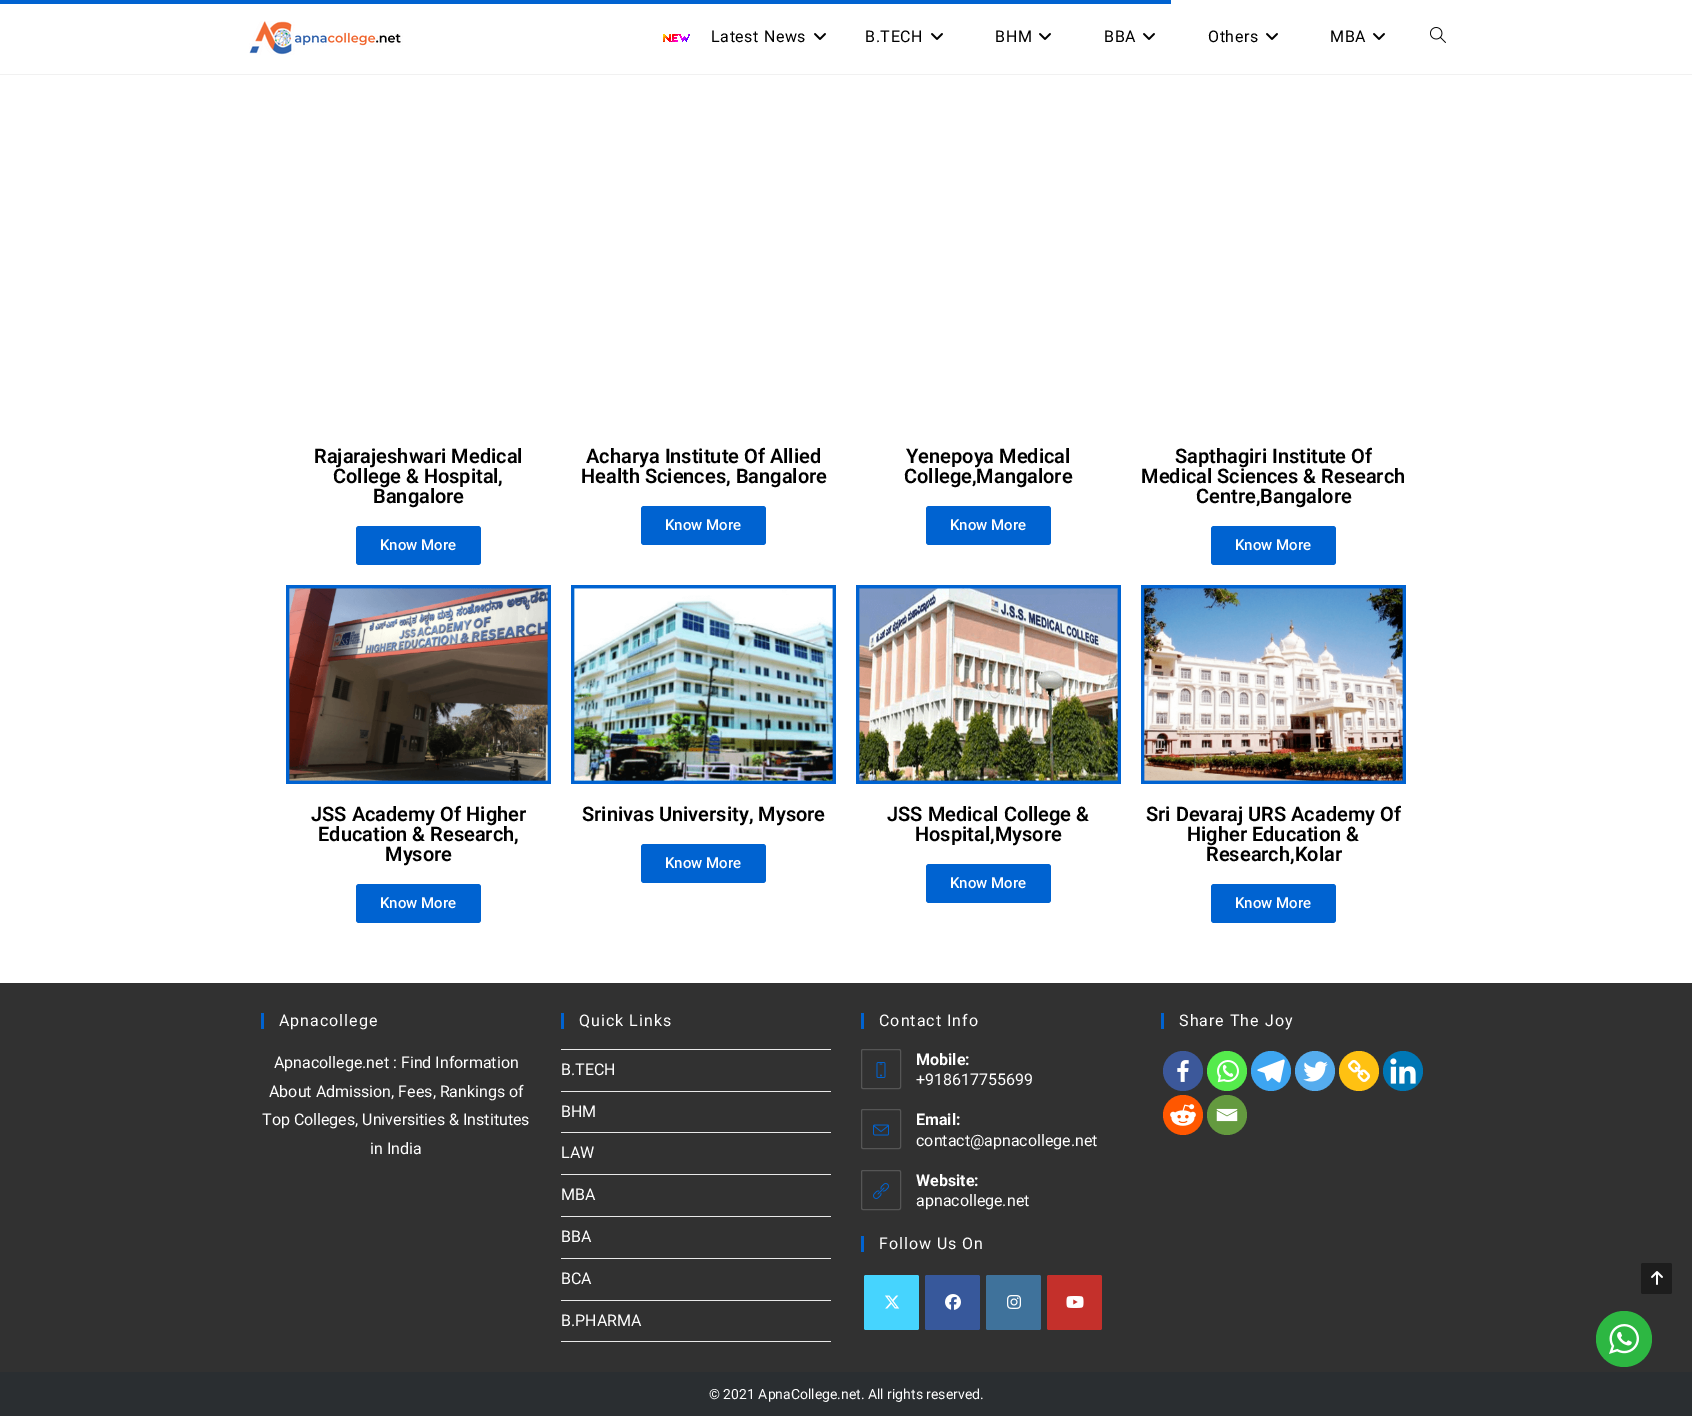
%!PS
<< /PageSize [1692 1416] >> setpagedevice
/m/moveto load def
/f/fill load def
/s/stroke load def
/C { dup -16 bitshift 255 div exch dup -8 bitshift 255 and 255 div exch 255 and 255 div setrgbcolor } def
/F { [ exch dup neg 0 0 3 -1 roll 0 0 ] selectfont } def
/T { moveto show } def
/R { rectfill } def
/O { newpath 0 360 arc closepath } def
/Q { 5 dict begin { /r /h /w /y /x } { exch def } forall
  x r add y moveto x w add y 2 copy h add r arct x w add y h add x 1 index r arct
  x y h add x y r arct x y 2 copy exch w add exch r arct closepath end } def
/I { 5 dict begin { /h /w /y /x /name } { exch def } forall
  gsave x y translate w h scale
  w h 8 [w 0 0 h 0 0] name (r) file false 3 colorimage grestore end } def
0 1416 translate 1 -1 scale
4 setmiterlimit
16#FFFFFF C
0 0 1692 1416 R
16#0063D1 C
0 0 1171 4 R
16#F1F1F1 C
0 74 1692 1 R
(1.rgb) 249 21 154 34 I
(2.rgb) 663 34 27 8 I
/Roboto-Regular 16 F
16#000000 C
711 42 m .6 0 (Latest News) ashow
(3.rgb) 814 33 12 7 I
865 42 m .6 0 (B.TECH) ashow
(3.rgb) 931 33 12 7 I
995 42 m .6 0 (BHM) ashow
(3.rgb) 1039 33 12 7 I
1104 42 m .6 0 (BBA) ashow
(3.rgb) 1143 33 12 7 I
1208 42 m .6 0 (Others) ashow
(3.rgb) 1266 33 12 7 I
1330 42 m .6 0 (MBA) ashow
(3.rgb) 1373 33 12 7 I
(4.rgb) 1430 27 16 16 I
/Roboto-SemiBold 20 F
(Rajarajeshwari Medical) 314 463 T
(College & Hospital,) 333 483 T
(Bangalore) 373 503 T
16#0063D1 C
356 526 125 39 3 Q f
/Roboto-Medium 15 F
16#FFFFFF C
(Know More) 380 550 T
/Roboto-SemiBold 20 F
16#000000 C
(Acharya Institute Of Allied) 586 463 T
(Health Sciences, Bangalore) 581 483 T
16#0063D1 C
641 506 125 39 3 Q f
/Roboto-Medium 15 F
16#FFFFFF C
(Know More) 665 530 T
/Roboto-SemiBold 20 F
16#000000 C
(Yenepoya Medical) 906 463 T
(College,Mangalore) 904 483 T
16#0063D1 C
926 506 125 39 3 Q f
/Roboto-Medium 15 F
16#FFFFFF C
(Know More) 950 530 T
/Roboto-SemiBold 20 F
16#000000 C
(Sapthagiri Institute Of) 1175 463 T
(Medical Sciences & Research) 1141 483 T
(Centre,Bangalore) 1196 503 T
16#0063D1 C
1211 526 125 39 3 Q f
/Roboto-Medium 15 F
16#FFFFFF C
(Know More) 1235 550 T
(5.rgb) 286 585 265 199 I
/Roboto-SemiBold 20 F
16#000000 C
(JSS Academy Of Higher) 311 821 T
(Education & Research,) 318 841 T
(Mysore) 385 861 T
16#0063D1 C
356 884 125 39 3 Q f
/Roboto-Medium 15 F
16#FFFFFF C
(Know More) 380 908 T
(6.rgb) 571 585 265 199 I
/Roboto-SemiBold 20 F
16#000000 C
(Srinivas University, Mysore) 582 821 T
16#0063D1 C
641 844 125 39 3 Q f
/Roboto-Medium 15 F
16#FFFFFF C
(Know More) 665 868 T
(7.rgb) 856 585 265 199 I
/Roboto-SemiBold 20 F
16#000000 C
(JSS Medical College &) 887 821 T
(Hospital,Mysore) 915 841 T
16#0063D1 C
926 864 125 39 3 Q f
/Roboto-Medium 15 F
16#FFFFFF C
(Know More) 950 888 T
(8.rgb) 1141 585 265 199 I
/Roboto-SemiBold 20 F
16#000000 C
(Sri Devaraj URS Academy Of) 1146 821 T
(Higher Education &) 1187 841 T
(Research,Kolar) 1206 861 T
16#0063D1 C
1211 884 125 39 3 Q f
/Roboto-Medium 15 F
16#FFFFFF C
(Know More) 1235 908 T
16#313131 C
0 983 1692 389 R
16#0063D1 C
261 1013 3 16 R
/Roboto-Regular 16 F
16#FFFFFF C
279 1026 m 1 0 (Apnacollege) ashow
(Apnacollege.net : Find Information) 274 1068 T
(About Admission, Fees, Rankings of) 269 1097 T
(Top Colleges, Universities & Institutes) 262 1125 T
(in India) 370 1154 T
16#0063D1 C
561 1013 3 16 R
16#FFFFFF C
579 1026 m 1 0 (Quick Links) ashow
16#E9E9E9 C
561 1049 270 1 R
561 1091 270 1 R
16#FFFFFF C
(B.TECH) 561 1075 T
16#E9E9E9 C
561 1132 270 1 R
16#FFFFFF C
(BHM) 561 1117 T
16#E9E9E9 C
561 1174 270 1 R
16#FFFFFF C
(LAW) 561 1158 T
16#E9E9E9 C
561 1216 270 1 R
16#FFFFFF C
(MBA) 561 1200 T
16#E9E9E9 C
561 1258 270 1 R
16#FFFFFF C
(BBA) 561 1242 T
16#E9E9E9 C
561 1300 270 1 R
16#FFFFFF C
(BCA) 561 1284 T
16#E9E9E9 C
561 1341 270 1 R
16#FFFFFF C
(B.PHARMA) 561 1326 T
16#0063D1 C
861 1013 3 16 R
16#FFFFFF C
879 1026 m 1 0 (Contact Info) ashow
16#555555 C
861.5 1049.5 39 39 1.5 Q s
(9.rgb) 876 1062 10 16 I
/Roboto-Bold 16 F
16#FFFFFF C
(Mobile:) 916 1065 T
/Roboto-Regular 16 F
(+918617755699) 916 1085 T
16#555555 C
861.5 1109.5 39 39 1.5 Q s
(10.rgb) 873 1124 16 12 I
/Roboto-Bold 16 F
16#FFFFFF C
(Email:) 916 1125 T
/Roboto-Regular 16 F
(contact@apnacollege.net) 916 1146 T
16#555555 C
861.5 1170.5 39 39 1.5 Q s
(11.rgb) 873 1183 16 16 I
/Roboto-Bold 16 F
16#FFFFFF C
(Website:) 916 1186 T
/Roboto-Regular 16 F
(apnacollege.net) 916 1206 T
16#0063D1 C
861 1236 3 16 R
16#FFFFFF C
879 1249 m 1 0 (Follow Us On) ashow
16#46D4FE C
864 1275 55 55 2 Q f
(12.rgb) 885 1295 15 14 I
16#37589B C
925 1275 55 55 2 Q f
(13.rgb) 945 1294 16 16 I
16#3F729B C
986 1275 55 55 2 Q f
(14.rgb) 1007 1295 14 14 I
16#C4302B C
1047 1275 55 55 2 Q f
(15.rgb) 1066 1296 18 12 I
16#0063D1 C
1161 1013 3 16 R
16#FFFFFF C
1179 1026 m 1 0 (Share The Joy) ashow
16#3C589A C
1183 1071 20 O f
(16.rgb) 1177 1060 12 22 I
16#55EB4C C
1227 1071 20 O f
(17.rgb) 1217 1060 22 23 I
16#3DA5F1 C
1271 1071 20 O f
(18.rgb) 1257 1059 28 24 I
16#55ACEE C
1315 1071 20 O f
(19.rgb) 1303 1061 25 21 I
16#FFC112 C
1359 1071 20 O f
(20.rgb) 1348 1060 22 22 I
16#0077B5 C
1403 1071 20 O f
(21.rgb) 1390 1058 26 26 I
16#FF5700 C
1183 1115 20 O f
(22.rgb) 1170 1104 26 22 I
16#649A3F C
1227 1115 20 O f
(23.rgb) 1216 1108 22 14 I
16#2A2E31 C
0 1372 1692 44 R
/Roboto-Regular 14 F
16#FFFFFF C
(© 2021 ApnaCollege.net. All rights reserved.) 709 1399 T
16#1D1D1D C
1641 1263 31 31 2 Q f
(24.rgb) 1651 1271 12 14 I
16#2DB742 C
1624 1339 28 O f
(25.rgb) 1609 1324 30 30 I
showpage
